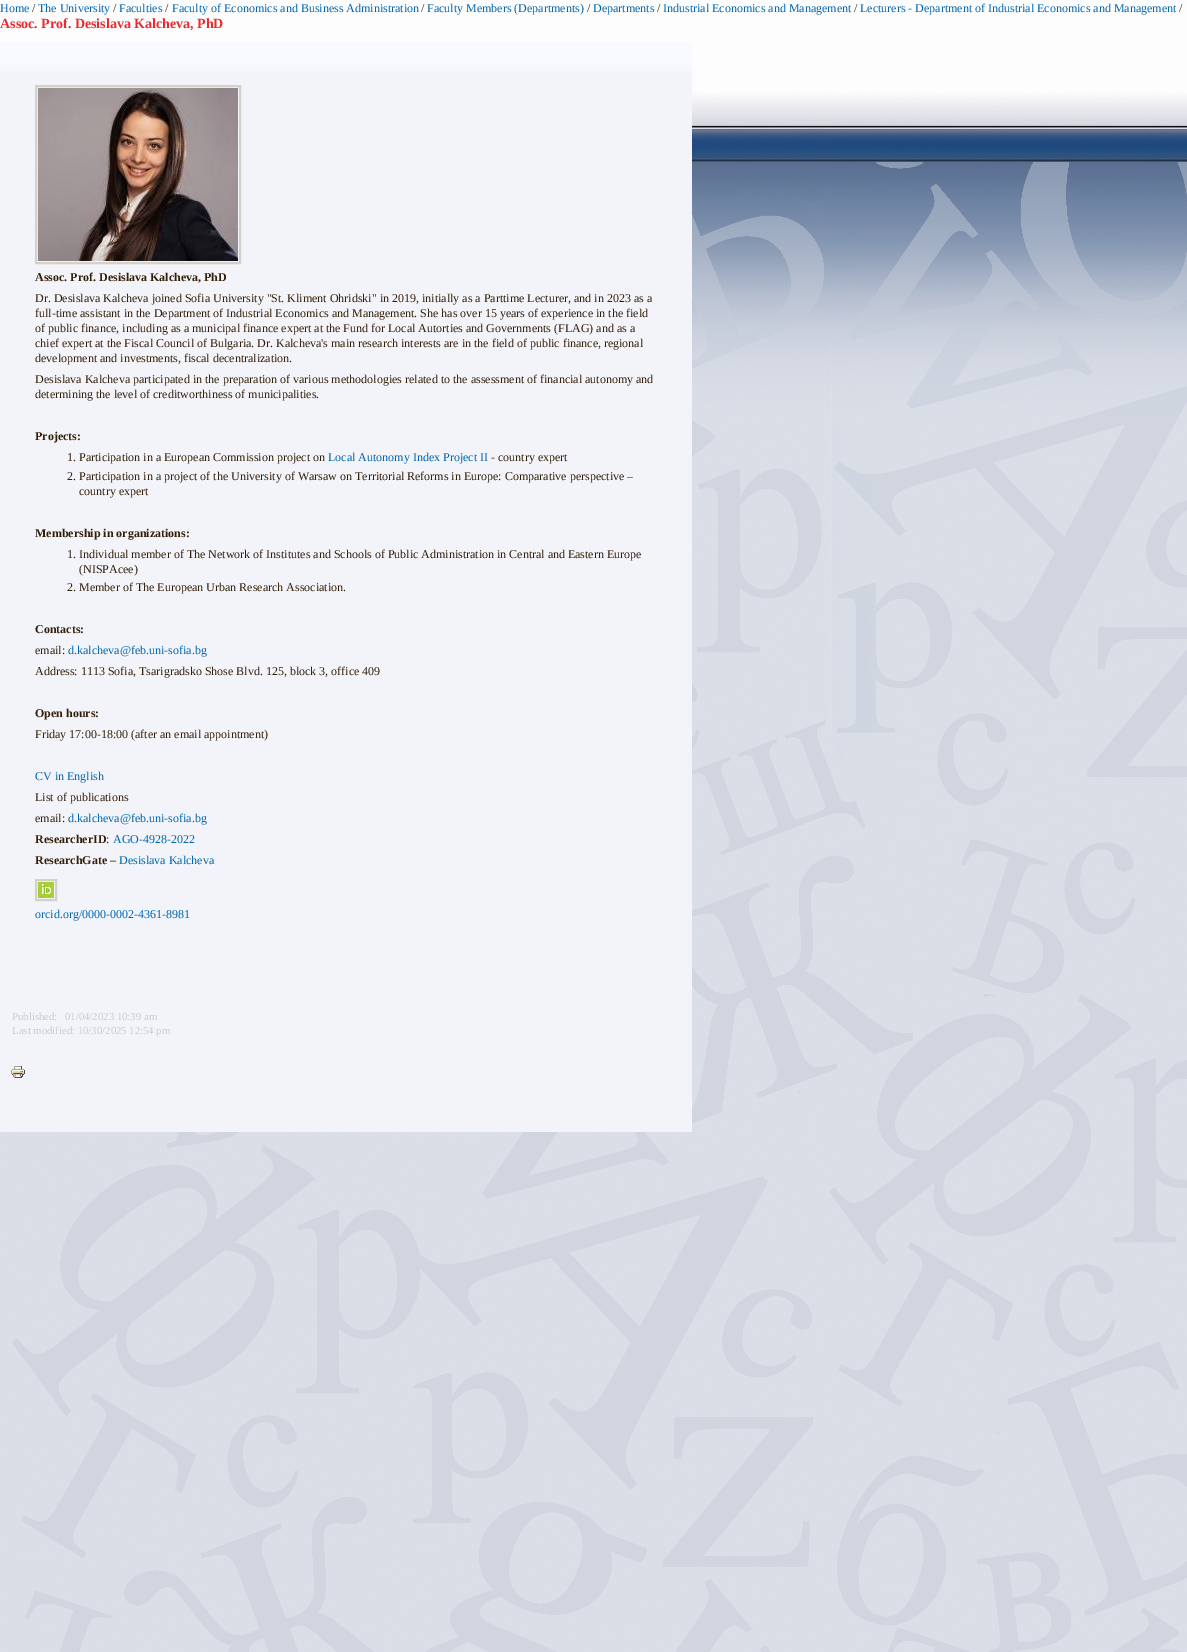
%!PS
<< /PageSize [1187 1652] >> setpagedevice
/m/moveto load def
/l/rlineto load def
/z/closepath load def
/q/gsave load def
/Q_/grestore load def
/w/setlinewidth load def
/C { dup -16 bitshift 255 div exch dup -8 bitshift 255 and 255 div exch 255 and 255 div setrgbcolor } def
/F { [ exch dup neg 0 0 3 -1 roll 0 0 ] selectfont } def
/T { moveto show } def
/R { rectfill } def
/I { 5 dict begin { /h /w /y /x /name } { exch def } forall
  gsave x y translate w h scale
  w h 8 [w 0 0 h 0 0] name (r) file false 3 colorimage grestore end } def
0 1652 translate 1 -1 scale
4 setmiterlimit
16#FFFFFF C
0 0 1187 1652 R
(1.rgb) 0 0 1187 1652 I
/LiberationSerif-Regular 12 F
16#0066B1 C
(Home) 0 12 T
16#331F09 C
(/) 32 12 T
16#0066B1 C
(The University) 38 12 T
16#331F09 C
(/) 113 12 T
16#0066B1 C
(Faculties) 119 12 T
16#331F09 C
(/) 165 12 T
16#0066B1 C
(Faculty of Economics and Business Administration) 172 12 T
16#331F09 C
(/) 421 12 T
16#0066B1 C
(Faculty Members \(Departments\)) 427 12 T
16#331F09 C
(/) 587 12 T
16#0066B1 C
(Departments) 593 12 T
16#331F09 C
(/) 657 12 T
16#0066B1 C
(Industrial Economics and Management) 663 12 T
16#331F09 C
(/) 854 12 T
16#0066B1 C
(Lecturers - Department of Industrial Economics and Management) 860 12 T
16#331F09 C
(/) 1179 12 T
/LiberationSerif-Bold 14 F
16#EA2A2F C
(Assoc. Prof. Desislava Kalcheva, PhD) 0 28 T
q 0 42 m 692 0 l 0 1090 l -692 0 l z clip newpath
<< /ShadingType 2 /ColorSpace /DeviceRGB /Coords [346 42 346 1132] /Extend [true true] /Function << /FunctionType 3 /Domain [0 1] /Functions [<< /FunctionType 2 /Domain [0 1] /C0 [.976 .98 1] /C1 [.976 .98 1] /N 1 >> << /FunctionType 2 /Domain [0 1] /C0 [.976 .98 1] /C1 [.953 .957 .976] /N 1 >> << /FunctionType 2 /Domain [0 1] /C0 [.953 .957 .976] /C1 [.953 .957 .976] /N 1 >>] /Bounds [.02 .03] /Encode [0 1 0 1 0 1] >> >> shfill Q_
16#D4D2C8 C
2 w
36 86 204 177 rectstroke
(2.rgb) 38 88 200 173 I
/LiberationSerif-Bold 12 F
16#331F09 C
(Assoc. Prof. Desislava Kalcheva, PhD) 35 281 T
/LiberationSerif-Regular 12 F
(Dr. Desislava Kalcheva joined Sofia University "St. Kliment Ohridski" in 2019, initially as a Parttime Lecturer, and in 2023 as a) 35 302 T
(full-time assistant in the Department of Industrial Economics and Management. She has over 15 years of experience in the field) 35 317 T
(of public finance, including as a municipal finance expert at the Fund for Local Autorties and Governments \(FLAG\) and as a) 35 332 T
(chief expert at the Fiscal Council of Bulgaria. Dr. Kalcheva's main research interests are in the field of public finance, regional) 35 347 T
(development and investments, fiscal decentralization.) 35 362 T
(Desislava Kalcheva participated in the preparation of various methodologies related to the assessment of financial autonomy and) 35 383 T
(determining the level of creditworthiness of municipalities.) 35 398 T
/LiberationSerif-Bold 12 F
(Projects:) 35 440 T
/LiberationSerif-Regular 12 F
(1. Participation in a European Commission project on) 67 461 T
16#0066B1 C
(Local Autonomy Index Project II) 328 461 T
16#331F09 C
(- country expert) 491 461 T
(2. Participation in a project of the University of Warsaw on Territorial Reforms in Europe: Comparative perspective –) 67 480 T
(country expert) 79 495 T
/LiberationSerif-Bold 12 F
(Membership in organizations:) 35 537 T
/LiberationSerif-Regular 12 F
(1. Individual member of The Network of Institutes and Schools of Public Administration in Central and Eastern Europe) 67 558 T
(\(NISPAcee\)) 79 573 T
(2. Member of The European Urban Research Association.) 67 591 T
/LiberationSerif-Bold 12 F
(Contacts:) 35 633 T
/LiberationSerif-Regular 12 F
(email:) 35 654 T
16#0066B1 C
(d.kalcheva@feb.uni-sofia.bg) 68 654 T
16#331F09 C
(Address: 1113 Sofia, Tsarigradsko Shose Blvd. 125, block 3, office 409) 35 675 T
/LiberationSerif-Bold 12 F
(Open hours:) 35 717 T
/LiberationSerif-Regular 12 F
(Friday 17:00-18:00 \(after an email appointment\)) 35 738 T
16#0066B1 C
(CV in English) 35 780 T
16#331F09 C
(List of publications) 35 801 T
(email:) 35 822 T
16#0066B1 C
(d.kalcheva@feb.uni-sofia.bg) 68 822 T
/LiberationSerif-Bold 12 F
16#331F09 C
(ResearcherID) 35 843 T
/LiberationSerif-Regular 12 F
(:) 106 843 T
16#0066B1 C
(AGO-4928-2022) 113 843 T
/LiberationSerif-Bold 12 F
16#331F09 C
(ResearchGate –) 35 864 T
/LiberationSerif-Regular 12 F
16#0066B1 C
(Desislava Kalcheva) 119 864 T
16#D4D2C8 C
36 880 20 20 rectstroke
(3.rgb) 38 882 16 16 I
16#0066B1 C
(orcid.org/0000-0002-4361-8981) 35 918 T
/LiberationSerif-Regular 10.75 F
16#CCCCCC C
(Published:) 12 1020 T
(01/04/2023 10:39 am) 65 1020 T
(Last modified: 10/30/2025 12:54 pm) 12 1034 T
(4.rgb) 11 1066 14 12 I
showpage
